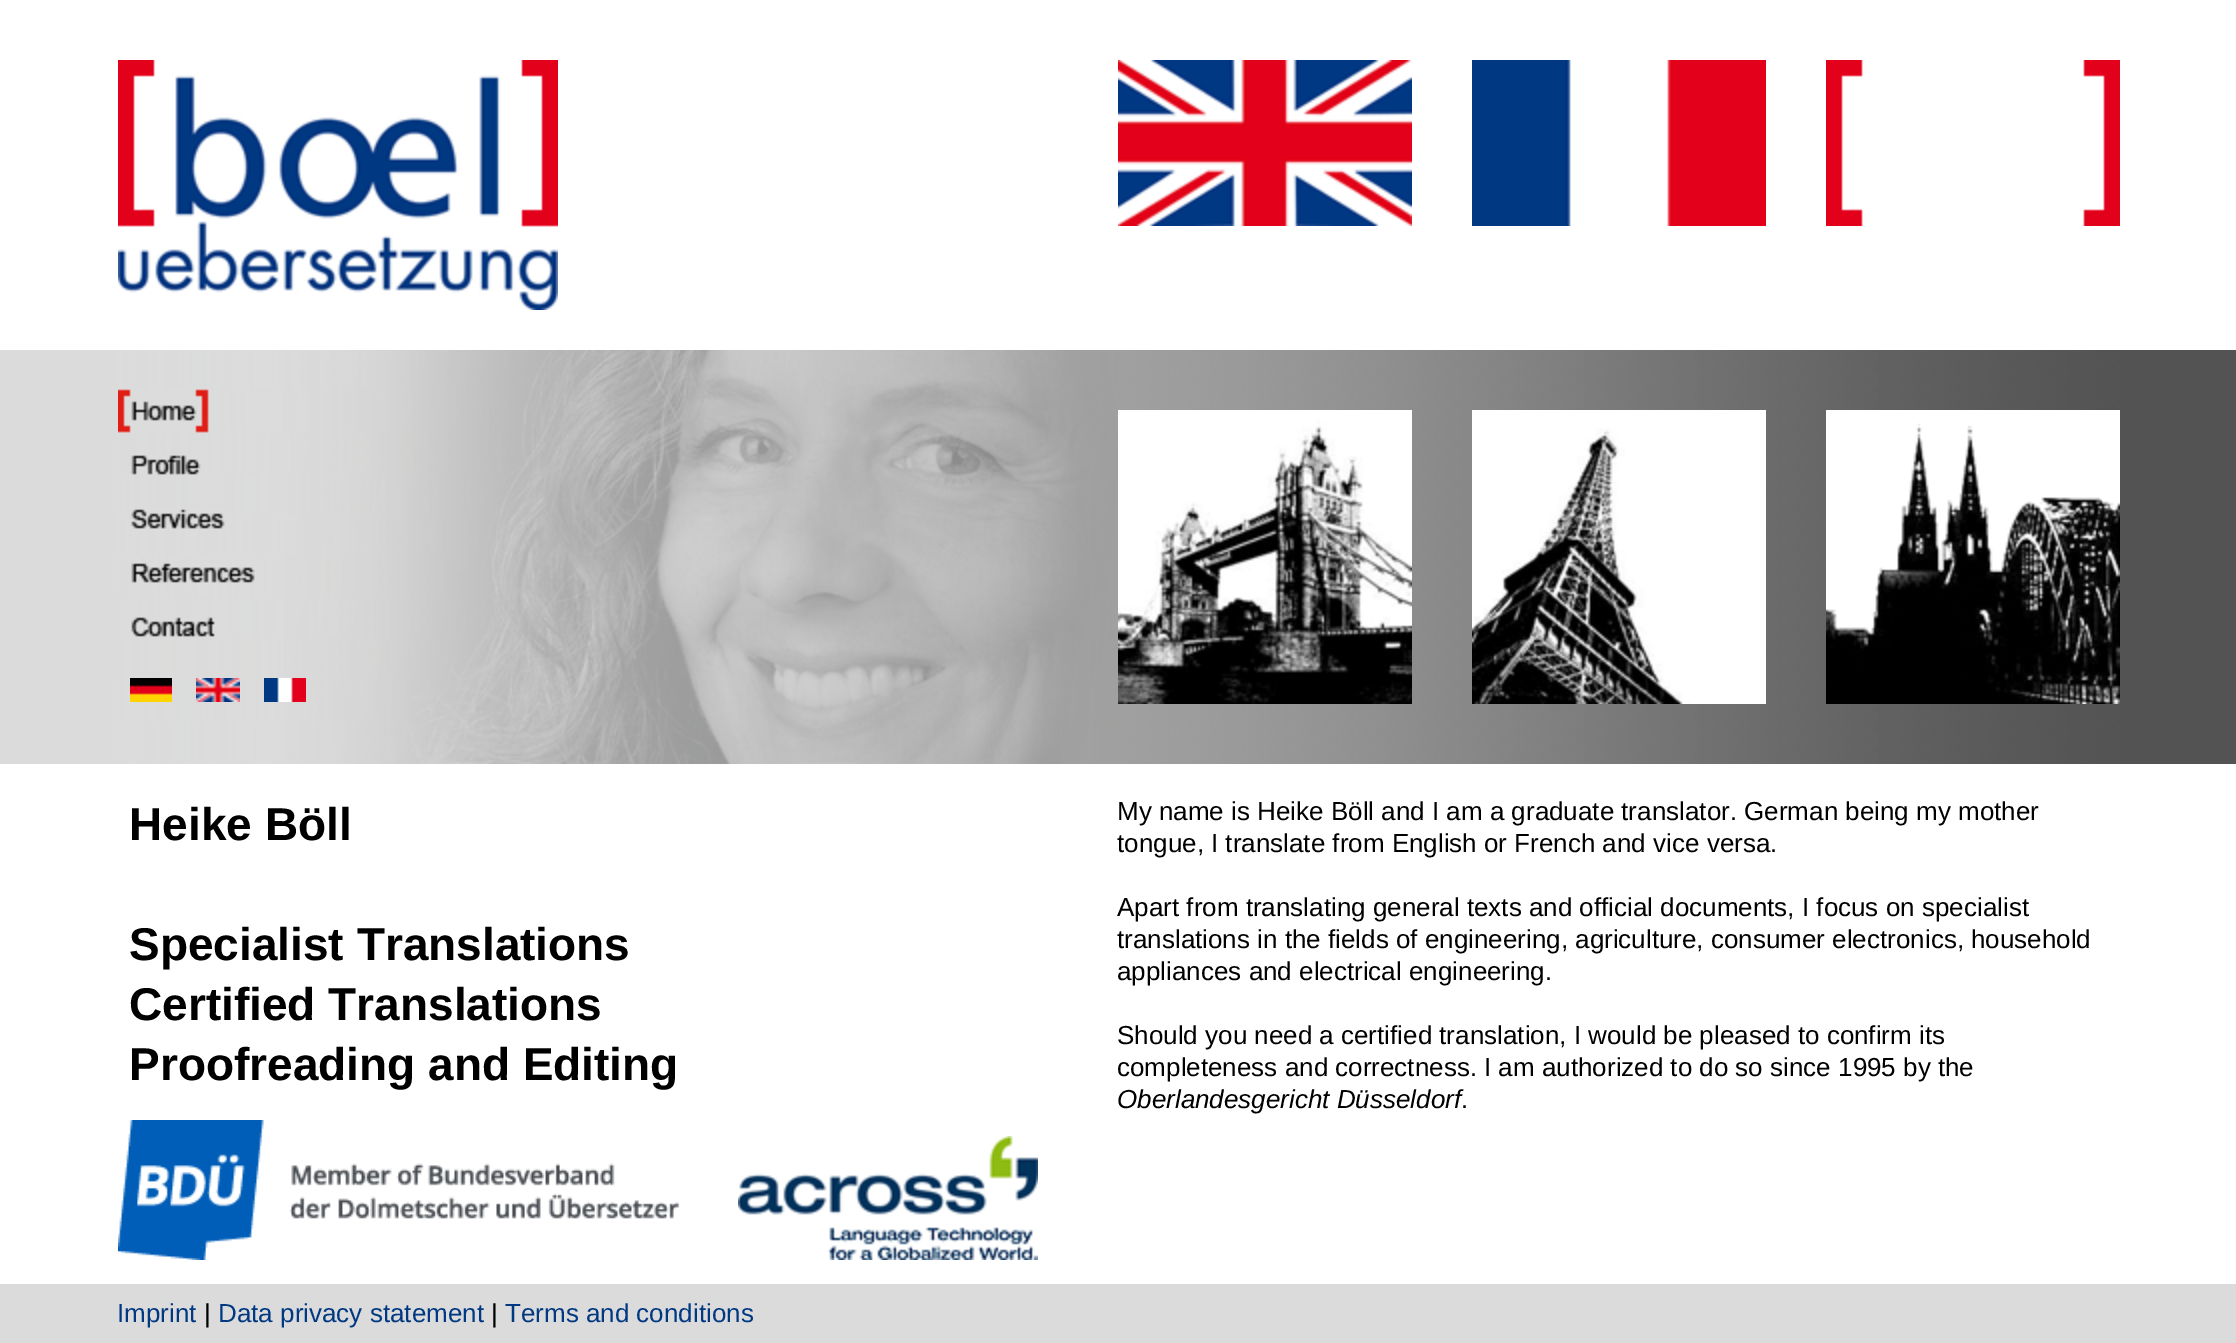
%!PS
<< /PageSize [2236 1343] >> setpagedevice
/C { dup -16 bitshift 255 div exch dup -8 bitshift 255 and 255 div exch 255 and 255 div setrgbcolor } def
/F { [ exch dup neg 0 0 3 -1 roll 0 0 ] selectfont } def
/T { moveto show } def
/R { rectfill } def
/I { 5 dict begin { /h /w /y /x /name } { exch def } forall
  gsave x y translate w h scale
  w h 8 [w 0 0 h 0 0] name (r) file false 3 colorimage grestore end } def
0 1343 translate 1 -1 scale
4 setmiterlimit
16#FFFFFF C
0 0 2236 1343 R
(1.rgb) 118 60 440 250 I
(2.rgb) 1118 60 294 166 I
(3.rgb) 1472 60 294 166 I
(4.rgb) 1826 60 294 166 I
16#DCDBDB C
0 350 118 414 R
(5.rgb) 118 350 1000 414 I
(6.rgb) 118 389 91 44 I
(7.rgb) 131 455 70 20 I
(8.rgb) 131 509 94 20 I
(9.rgb) 131 563 124 20 I
(10.rgb) 131 617 84 20 I
(11.rgb) 130 678 42 24 I
(12.rgb) 196 678 44 24 I
(13.rgb) 264 678 42 24 I
(14.rgb) 1118 350 1002 414 I
(15.rgb) 1118 410 294 294 I
(16.rgb) 1472 410 294 294 I
(17.rgb) 1826 410 294 294 I
16#545354 C
2120 350 116 414 R
/LiberationSans-Bold 46 F
16#000000 C
(Heike Böll) 129 840 T
(Specialist Translations) 129 960 T
(Certified Translations) 129 1020 T
(Proofreading and Editing) 129 1080 T
(18.rgb) 118 1120 562 140 I
(19.rgb) 738 1136 300 124 I
/LiberationSans-Regular 26 F
(My name is Heike Böll and I am a graduate translator. German being my mother) 1117 820 T
(tongue, I translate from English or French and vice versa.) 1117 852 T
(Apart from translating general texts and official documents, I focus on specialist) 1117 916 T
(translations in the fields of engineering, agriculture, consumer electronics, household) 1117 948 T
(appliances and electrical engineering.) 1117 980 T
(Should you need a certified translation, I would be pleased to confirm its) 1117 1044 T
(completeness and correctness. I am authorized to do so since 1995 by the) 1117 1076 T
/LiberationSans-Italic 26 F
(Oberlandesgericht Düsseldorf) 1117 1108 T
/LiberationSans-Regular 26 F
(.) 1461 1108 T
16#DCDBDB C
0 1284 2236 59 R
16#003882 C
(Imprint) 117 1322 T
16#000000 C
(|) 204 1322 T
16#003882 C
(Data privacy statement) 218 1322 T
16#000000 C
(|) 491 1322 T
16#003882 C
(Terms and conditions) 505 1322 T
showpage
